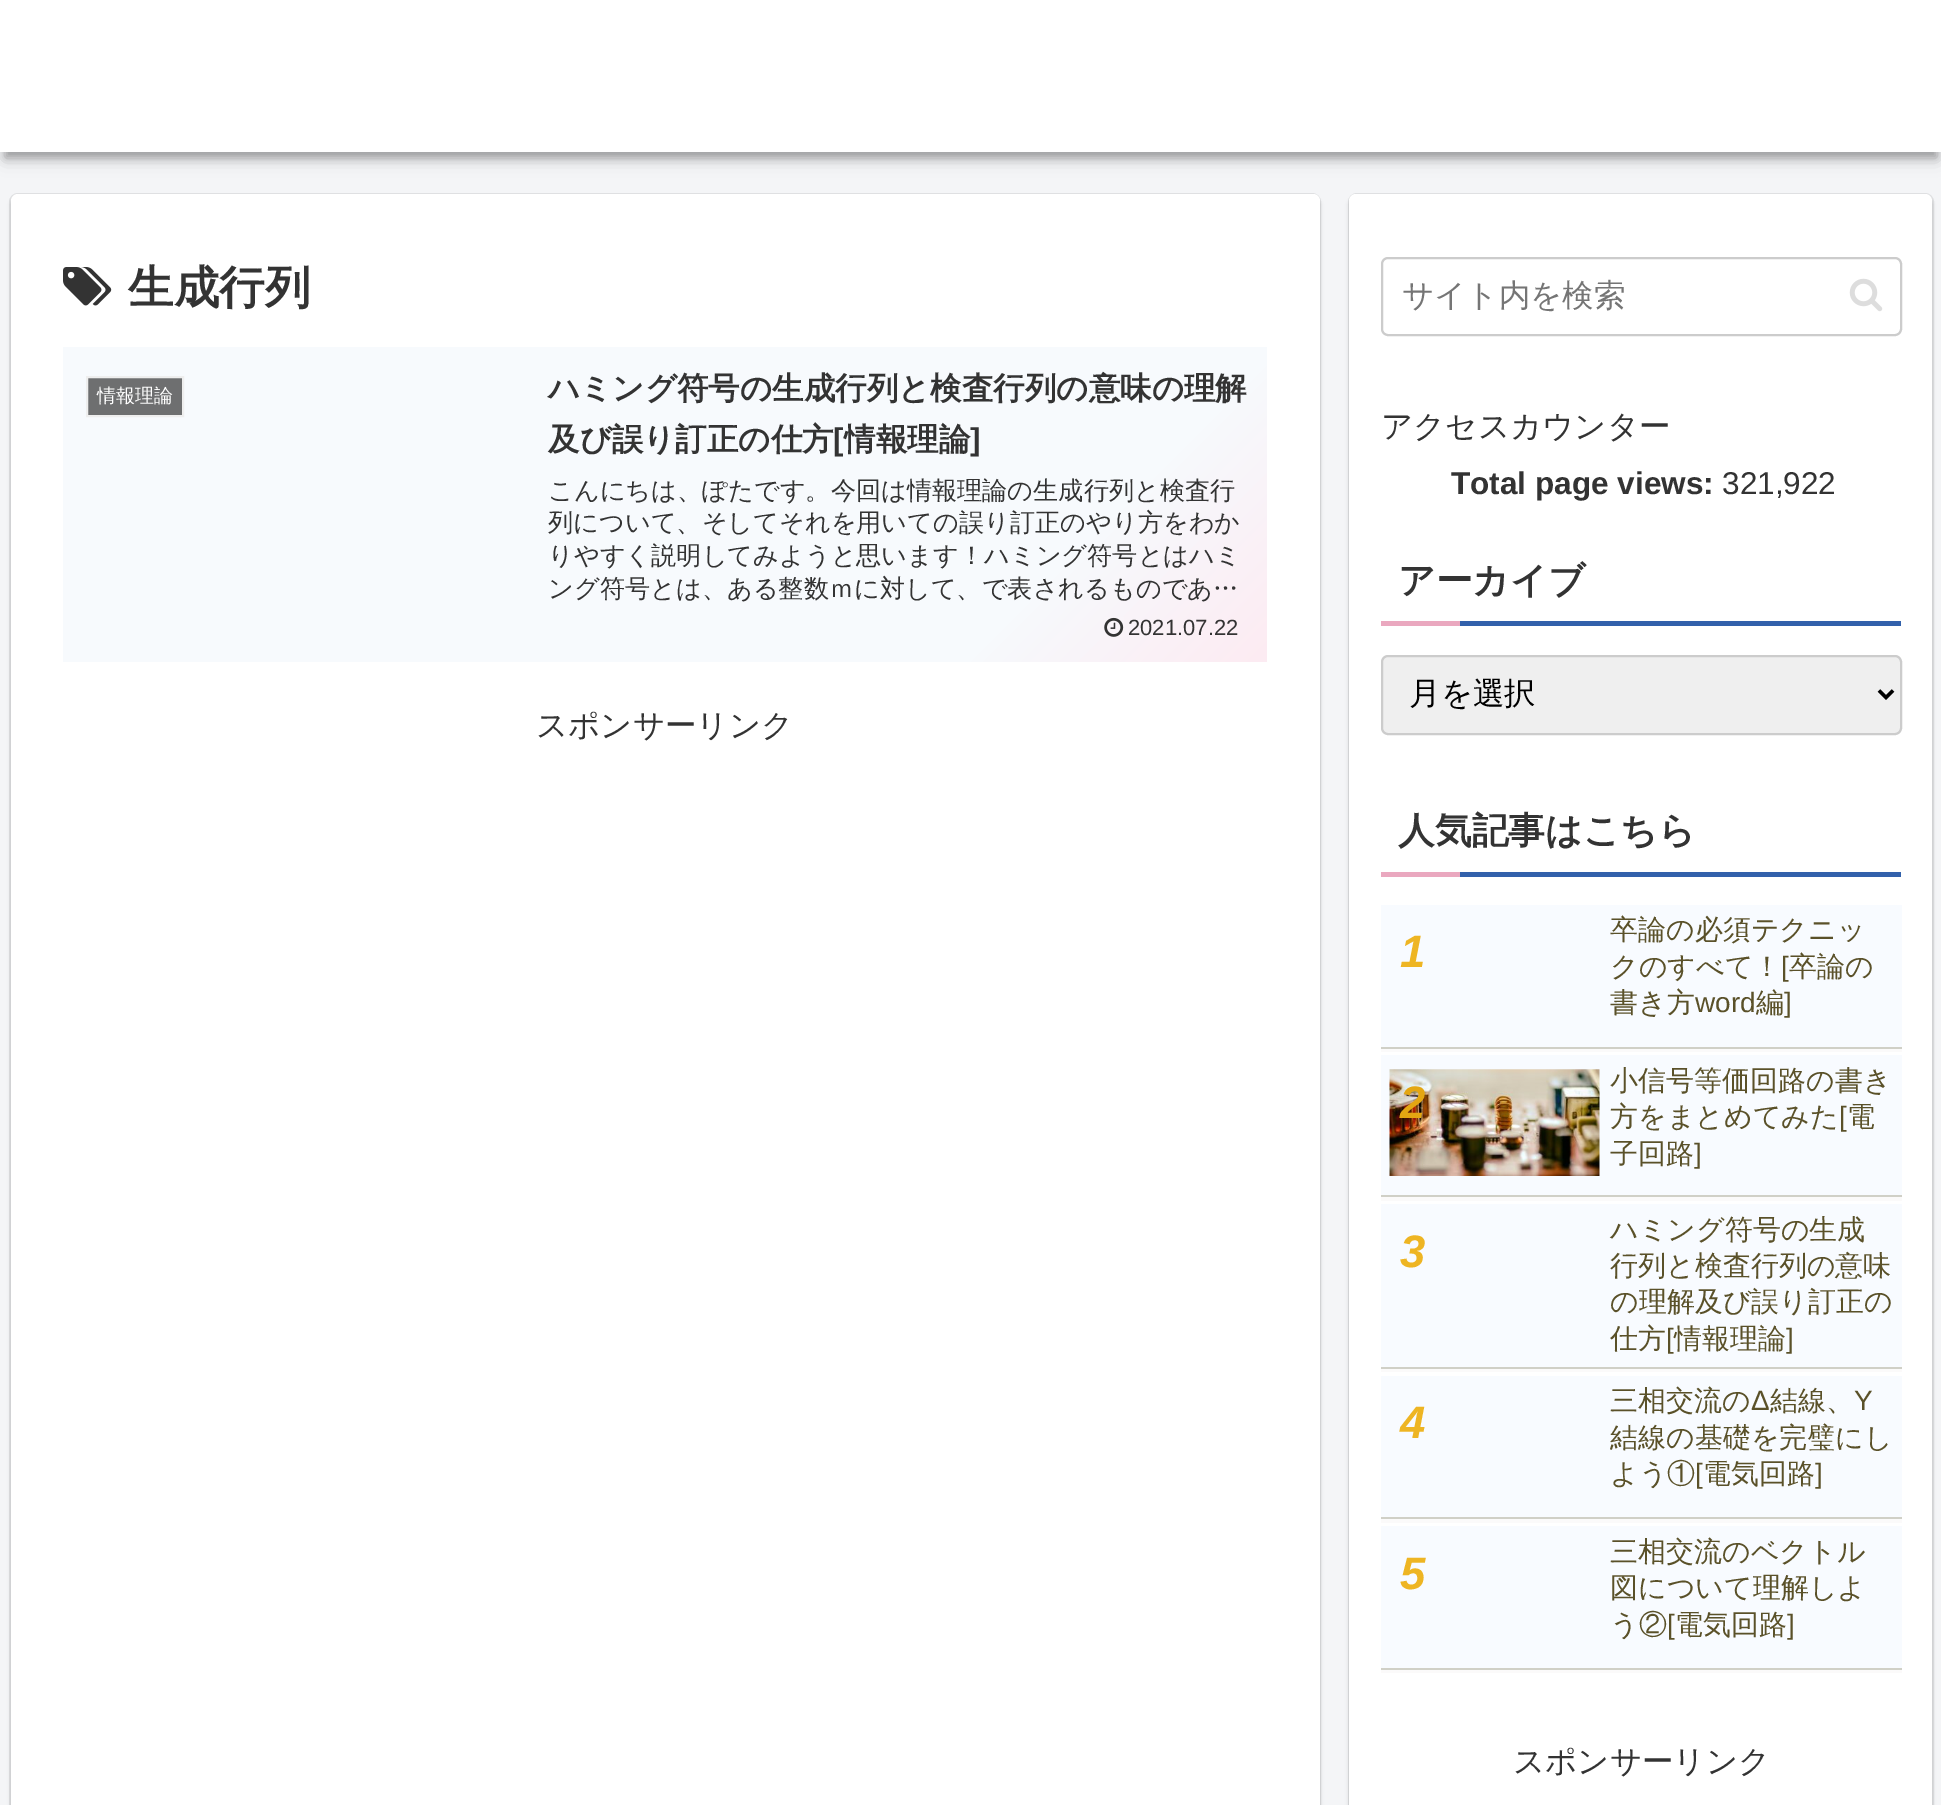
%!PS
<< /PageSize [1941 1805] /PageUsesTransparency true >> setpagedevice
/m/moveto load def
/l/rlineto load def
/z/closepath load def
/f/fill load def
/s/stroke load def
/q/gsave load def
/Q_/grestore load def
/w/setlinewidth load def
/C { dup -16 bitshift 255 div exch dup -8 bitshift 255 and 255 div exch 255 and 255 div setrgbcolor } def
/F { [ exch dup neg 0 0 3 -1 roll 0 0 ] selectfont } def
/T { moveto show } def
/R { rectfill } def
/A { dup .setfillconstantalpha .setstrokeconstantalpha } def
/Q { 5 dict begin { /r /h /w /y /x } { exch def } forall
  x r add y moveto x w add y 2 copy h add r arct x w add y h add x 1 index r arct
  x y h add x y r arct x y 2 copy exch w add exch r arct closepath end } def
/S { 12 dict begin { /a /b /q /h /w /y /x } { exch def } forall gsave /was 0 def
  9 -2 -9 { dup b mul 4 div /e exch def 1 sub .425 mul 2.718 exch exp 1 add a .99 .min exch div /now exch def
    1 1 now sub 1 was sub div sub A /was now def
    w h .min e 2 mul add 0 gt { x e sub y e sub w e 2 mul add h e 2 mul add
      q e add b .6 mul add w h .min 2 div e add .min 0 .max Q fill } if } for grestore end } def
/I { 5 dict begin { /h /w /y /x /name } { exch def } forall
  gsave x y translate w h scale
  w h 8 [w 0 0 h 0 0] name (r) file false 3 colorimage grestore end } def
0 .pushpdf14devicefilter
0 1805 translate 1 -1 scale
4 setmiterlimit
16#F4F5F7 C
0 0 1941 1805 R
16#000000 C
5 16 1932 142 0 9 .18 S
5 16 1932 142 0 4.5 .24 S
16#FFFFFF C
0 0 1941 152 R
16#E0E1E3 C
2 w
10 194 1310 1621 8 Q s
16#000000 C
11 198 1309 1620 7 2 .16 S
16#FFFFFF C
11 194 1309 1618 7 Q f
(1.rgb) 63 267 49 39 I
/WenQuanYiZenHei-Bold 45.5 F
16#333333 C
(生成行列) 128 303 T
q 63 347 m 1204 0 l 0 315 l -1204 0 l z clip newpath
<< /ShadingType 2 /ColorSpace /DeviceRGB /Coords [285 124 1045 884] /Extend [true true] /Function << /FunctionType 3 /Domain [0 1] /Functions [<< /FunctionType 2 /Domain [0 1] /C0 [.969 .98 .992] /C1 [.969 .98 .992] /N 1 >> << /FunctionType 2 /Domain [0 1] /C0 [.969 .98 .992] /C1 [.992 .922 .949] /N 1 >>] /Bounds [.8] /Encode [0 1 0 1] >> >> shfill Q_
16#6E6F70 C
87 377 m 96 0 l 0 39 l -96 0 l z q f Q_
16#EEEEEE C
s
/WenQuanYiZenHei-Medium 19 F
16#FFFFFF C
(情報理論) 97 402 T
/WenQuanYiZenHei-Bold 31.5 F
16#333333 C
(ハミング符号の生成行列と検査行列の意味の理解) 548 399 T
(及び誤り訂正の仕方) 548 450 T
/LiberationSans-Bold 31.5 F
([) 833 450 T
/WenQuanYiZenHei-Bold 31.5 F
(情報理論) 844 450 T
/LiberationSans-Bold 31.5 F
(]) 970 450 T
/WenQuanYiZenHei-Medium 25.2 F
(こんにちは、ぽたです。今回は情報理論の生成行列と検査行) 548 499 T
(列について、そしてそれを用いての誤り訂正のやり方をわか) 548 531 T
(りやすく説明してみようと思います！ハミング符号とはハミ) 548 564 T
(ング符号とは、ある整数ｍに対して、で表されるものであ…) 548 597 T
(2.rgb) 1104 617 20 20 I
/LiberationSans-Regular 22 F
(2021.07.22) 1128 635 T
/WenQuanYiZenHei-Medium 31.5 F
(スポンサーリンク) 536 736 T
16#E0E1E3 C
1349 194 584 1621 8 Q s
16#000000 C
1349 198 583 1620 7 2 .16 S
16#FFFFFF C
1349 194 583 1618 7 Q f
16#CCCCCC C
1382 258 519 77 6 Q s
16#757575 C
(サイト内を検索) 1402 306 T
(3.rgb) 1849 278 34 34 I
16#333333 C
(アクセスカウンター) 1381 437 T
/LiberationSans-Bold 31.5 F
(Total page views:) 1451 494 T
/LiberationSans-Regular 31.5 F
(321,922) 1722 494 T
16#3261AB C
1460 621 441 5 R
/WenQuanYiZenHei-Bold 36.75 F
16#333333 C
(アーカイブ) 1398 593 T
16#EAA8BF C
1381 621 79 5 R
16#EFEFEF C
1382 656 519 78 6 Q q f Q_
16#CCCCCC C
s
16#000000 C
3.5 w
1879 690.5 m 7 7 l 7 -7 l s
/WenQuanYiZenHei-Medium 31.5 F
(月を選択) 1409 704 T
16#3261AB C
1460 872 441 5 R
/WenQuanYiZenHei-Bold 36.75 F
16#333333 C
(人気記事はこちら) 1398 843 T
16#EAA8BF C
1381 872 79 5 R
16#FBFAFA C
1381 1049 521 3 R
16#F8FBFF C
1381 905 521 142 R
16#D0D0C7 C
1381 1047 521 2 R
/LiberationSans-BoldItalic 45.5 F
16#EEB523 C
(1) 1400 967 T
/WenQuanYiZenHei-Medium 28 F
16#5A5129 C
(卒論の必須テクニッ) 1610 939 T
(クのすべて！) 1610 976 T
/LiberationSans-Regular 28 F
([) 1781 976 T
/WenQuanYiZenHei-Medium 28 F
(卒論の) 1789 976 T
(書き方) 1610 1012 T
/LiberationSans-Regular 28 F
(word) 1695 1012 T
/WenQuanYiZenHei-Medium 28 F
(編) 1756 1012 T
/LiberationSans-Regular 28 F
(]) 1784 1012 T
16#FBFAFA C
1381 1197 521 4 R
16#F8FBFF C
1381 1055 521 140 R
16#D0D0C7 C
1381 1195 521 2 R
(4.rgb) 1389 1069 211 107 I
/LiberationSans-BoldItalic 45.5 F
16#E4A612 C
(2) 1400 1118 T
/WenQuanYiZenHei-Medium 28 F
16#5A5129 C
(小信号等価回路の書き) 1610 1090 T
(方をまとめてみた) 1610 1126 T
/LiberationSans-Regular 28 F
([) 1839 1126 T
/WenQuanYiZenHei-Medium 28 F
(電) 1847 1126 T
(子回路) 1610 1163 T
/LiberationSans-Regular 28 F
(]) 1694 1163 T
16#FBFAFA C
1381 1369 521 3 R
16#F8FBFF C
1381 1204 521 163 R
16#D0D0C7 C
1381 1367 521 2 R
/LiberationSans-BoldItalic 45.5 F
16#EEB523 C
(3) 1400 1267 T
/WenQuanYiZenHei-Medium 28 F
16#5A5129 C
(ハミング符号の生成) 1610 1239 T
(行列と検査行列の意味) 1610 1275 T
(の理解及び誤り訂正の) 1610 1311 T
(仕方) 1610 1348 T
/LiberationSans-Regular 28 F
([) 1666 1348 T
/WenQuanYiZenHei-Medium 28 F
(情報理論) 1674 1348 T
/LiberationSans-Regular 28 F
(]) 1786 1348 T
16#FBFAFA C
1381 1519 521 4 R
16#F8FBFF C
1381 1376 521 141 R
16#D0D0C7 C
1381 1517 521 2 R
/LiberationSans-BoldItalic 45.5 F
16#EEB523 C
(4) 1400 1438 T
/WenQuanYiZenHei-Medium 28 F
16#5A5129 C
(三相交流の) 1610 1410 T
/LiberationSans-Regular 28 F
(Δ) 1751 1410 T
/WenQuanYiZenHei-Medium 28 F
(結線、) 1770 1410 T
/LiberationSans-Regular 28 F
(Y) 1854 1410 T
/WenQuanYiZenHei-Medium 28 F
(結線の基礎を完璧にし) 1610 1447 T
(よう①) 1610 1483 T
/LiberationSans-Regular 28 F
([) 1695 1483 T
/WenQuanYiZenHei-Medium 28 F
(電気回路) 1703 1483 T
/LiberationSans-Regular 28 F
(]) 1815 1483 T
16#FBFAFA C
1381 1670 521 3 R
16#F8FBFF C
1381 1526 521 142 R
16#D0D0C7 C
1381 1668 521 2 R
/LiberationSans-BoldItalic 45.5 F
16#EEB523 C
(5) 1400 1589 T
/WenQuanYiZenHei-Medium 28 F
16#5A5129 C
(三相交流のベクトル) 1610 1561 T
(図について理解しよ) 1610 1597 T
(う②) 1610 1634 T
/LiberationSans-Regular 28 F
([) 1667 1634 T
/WenQuanYiZenHei-Medium 28 F
(電気回路) 1675 1634 T
/LiberationSans-Regular 28 F
(]) 1787 1634 T
/WenQuanYiZenHei-Medium 31.5 F
16#333333 C
(スポンサーリンク) 1513 1772 T
.poppdf14devicefilter showpage
